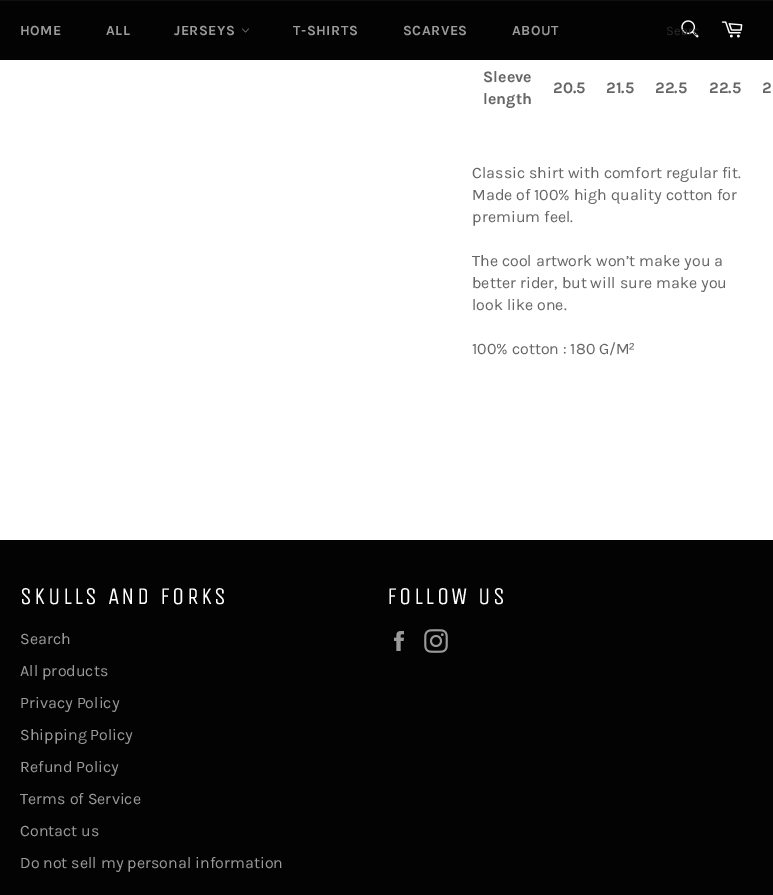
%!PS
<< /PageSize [773 895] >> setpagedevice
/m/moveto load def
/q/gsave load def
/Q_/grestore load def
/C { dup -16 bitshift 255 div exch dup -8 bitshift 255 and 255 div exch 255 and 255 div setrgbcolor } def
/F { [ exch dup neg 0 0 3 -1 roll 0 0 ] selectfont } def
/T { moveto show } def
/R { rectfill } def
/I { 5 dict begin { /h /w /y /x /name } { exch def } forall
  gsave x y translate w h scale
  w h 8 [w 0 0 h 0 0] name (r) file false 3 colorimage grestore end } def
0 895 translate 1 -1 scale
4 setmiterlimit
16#FFFFFF C
0 0 773 895 R
16#030303 C
0 1 773 59 R
16#101010 C
0 0 773 1 R
/Karla-Bold 14 F
16#9A9A9A C
20 35 m .5 0 (HOME) ashow
106 35 m .5 0 (ALL) ashow
174 35 m .5 0 (JERSEYS) ashow
(1.rgb) 242 28 7 5 I
293 35 m .5 0 (T-SHIRTS) ashow
403 35 m .5 0 (SCARVES) ashow
512 35 m .5 0 (ABOUT) ashow
(2.rgb) 681 20 18 18 I
q
666 23 32 15 rectclip
/Karla-Regular 13 F
16#2B2B2B C
(Searc) 666 35 T
Q_
(3.rgb) 721 21 22 17 I
/Karla-Bold 16 F
16#666666 C
(Sleeve) 483 82 T
(length) 483 104 T
(20.5) 553 93 T
(21.5) 606 93 T
(22.5) 655 93 T
(22.5) 709 93 T
(2) 762 93 T
/Karla-Regular 16 F
(Classic shirt with comfort regular fit.) 472 178 T
(Made of 100% high quality cotton for) 472 200 T
(premium feel.) 472 222 T
(The cool artwork won’t make you a) 472 266 T
(better rider, but will sure make you) 472 288 T
(look like one.) 472 310 T
(100% cotton : 180 G/M) 472 354 T
/LiberationSans-Regular 16 F
(²) 629 354 T
16#030303 C
0 540 773 355 R
/UnicaOne-Regular 24 F
16#FFFFFF C
20 604 m 2.4 0 (SKULLS AND FORKS) ashow
/Karla-Regular 16 F
16#9A9A9A C
(Search) 20 644 T
(All products) 20 676 T
(Privacy Policy) 20 708 T
(Shipping Policy) 20 740 T
(Refund Policy) 20 772 T
(Terms of Service) 20 804 T
(Contact us) 20 836 T
(Do not sell my personal information) 20 868 T
/UnicaOne-Regular 24 F
16#FFFFFF C
387 604 m 2.4 0 (FOLLOW US) ashow
(4.rgb) 394 631 10 20 I
(5.rgb) 424 629 24 24 I
showpage
